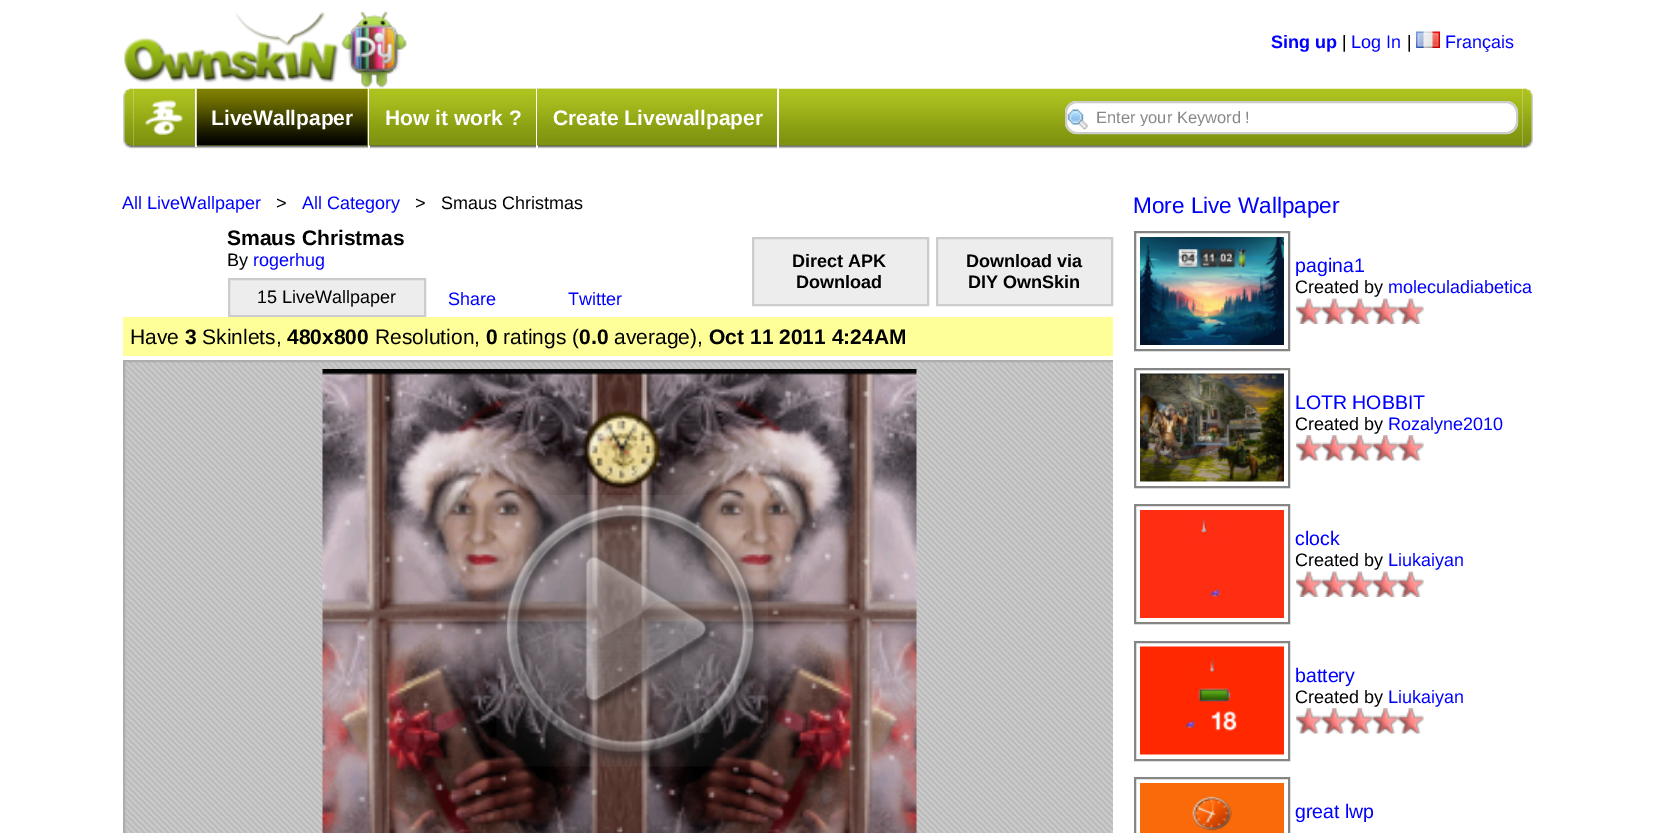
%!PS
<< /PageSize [1654 833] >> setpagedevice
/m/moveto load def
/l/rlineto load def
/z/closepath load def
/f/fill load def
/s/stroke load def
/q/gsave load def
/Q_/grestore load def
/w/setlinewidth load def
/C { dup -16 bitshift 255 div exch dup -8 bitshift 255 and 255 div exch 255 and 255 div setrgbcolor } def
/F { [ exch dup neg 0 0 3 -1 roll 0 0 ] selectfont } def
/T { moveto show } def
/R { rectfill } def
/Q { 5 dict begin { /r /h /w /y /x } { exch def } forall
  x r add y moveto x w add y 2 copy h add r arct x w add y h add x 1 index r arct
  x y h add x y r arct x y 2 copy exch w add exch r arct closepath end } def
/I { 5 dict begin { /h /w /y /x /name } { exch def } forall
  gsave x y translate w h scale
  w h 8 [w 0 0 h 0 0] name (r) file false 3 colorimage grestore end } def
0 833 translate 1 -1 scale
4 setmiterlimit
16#FFFFFF C
0 0 1654 833 R
(1.rgb) 124 11 283 77 I
/LiberationSans-Bold 18 F
16#0000FF C
(Sing up) 1271 48 T
/LiberationSans-Regular 18 F
16#000000 C
(|) 1342 48 T
16#0000FF C
(Log In) 1351 48 T
16#000000 C
(|) 1407 48 T
(2.rgb) 1416 31 24 17 I
16#0000FF C
(Français) 1445 48 T
(3.rgb) 123 88 11 61 I
(4.rgb) 133 88 1390 61 I
16#FFFFFF C
195 89 2 58 R
(5.rgb) 145 100 38 35 I
368 89 2 60 R
(6.rgb) 196 88 172 58 I
/LiberationSans-Bold 21 F
(LiveWallpaper) 211 125 T
536 89 2 60 R
(7.rgb) 369 88 167 58 I
(How it work ?) 385 125 T
777 89 2 60 R
(8.rgb) 537 88 240 58 I
(Create Livewallpaper) 553 125 T
1065 101 453 33 12 Q f
(9.rgb) 1067 109 21 21 I
16#CCCCCC C
2 w
1066 102 451 31 11 Q s
q
1097 108 420 18 rectclip
/LiberationSans-Regular 16.5 F
16#888888 C
(Enter your Keyword !) 1096 123 T
Q_
(10.rgb) 1522 88 11 61 I
/LiberationSans-Regular 18 F
16#0000FF C
(All LiveWallpaper) 122 209 T
16#000000 C
(>) 276 209 T
16#0000FF C
(All Category) 302 209 T
16#000000 C
(>   Smaus Christmas) 415 209 T
/LiberationSans-Bold 21 F
(Smaus Christmas) 227 245 T
/LiberationSans-Regular 18 F
(By) 227 266 T
16#0000FF C
(rogerhug) 253 266 T
16#EDEDED C
229 279 m 196 0 l 0 37 l -196 0 l z q f Q_
16#CCCCCC C
s
16#000000 C
(15 LiveWallpaper) 257 303 T
16#EDEDED C
753 238 m 175 0 l 0 67 l -175 0 l z q f Q_
16#CCCCCC C
s
/LiberationSans-Bold 18 F
16#000000 C
(Direct APK) 792 267 T
(Download) 796 288 T
16#EDEDED C
937 238 m 175 0 l 0 67 l -175 0 l z q f Q_
16#CCCCCC C
s
16#000000 C
(Download via) 966 267 T
(DIY OwnSkin) 968 288 T
/LiberationSans-Regular 18 F
16#0000FF C
(Share) 448 305 T
(Twitter) 568 305 T
16#FFFF99 C
123 317 990 39 R
/LiberationSans-Regular 21 F
16#000000 C
(Have) 130 344 T
/LiberationSans-Bold 21 F
(3) 185 344 T
/LiberationSans-Regular 21 F
(Skinlets,) 202 344 T
/LiberationSans-Bold 21 F
(480x800) 287 344 T
/LiberationSans-Regular 21 F
(Resolution,) 375 344 T
/LiberationSans-Bold 21 F
(0) 486 344 T
/LiberationSans-Regular 21 F
(ratings \() 503 344 T
/LiberationSans-Bold 21 F
(0.0) 579 344 T
/LiberationSans-Regular 21 F
(average\),) 614 344 T
/LiberationSans-Bold 21 F
(Oct 11 2011 4:24AM) 709 344 T
(11.rgb) 125 362 988 471 I
q
123 225 990 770 rectclip
16#ADADAD C
124 361 991 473 rectstroke
Q_
(12.rgb) 322 369 595 464 I
(13.rgb) 496 495 272 272 I
/LiberationSans-Regular 22.5 F
16#0000FF C
(More Live Wallpaper) 1133 213 T
16#858585 C
1135 232 154 118 rectstroke
(14.rgb) 1140 237 144 108 I
/LiberationSans-Regular 19.5 F
16#0000FF C
(pagina1) 1295 272 T
/LiberationSans-Regular 18 F
16#000000 C
(Created by) 1295 293 T
16#0000FF C
(moleculadiabetica) 1388 293 T
(15.rgb) 1296 298 26 26 I
(16.rgb) 1321 298 26 26 I
(17.rgb) 1347 298 26 26 I
(16.rgb) 1372 298 26 26 I
(15.rgb) 1398 298 26 26 I
16#858585 C
1135 369 154 118 rectstroke
(18.rgb) 1140 373 144 109 I
/LiberationSans-Regular 19.5 F
16#0000FF C
(LOTR HOBBIT) 1295 409 T
/LiberationSans-Regular 18 F
16#000000 C
(Created by) 1295 430 T
16#0000FF C
(Rozalyne2010) 1388 430 T
(19.rgb) 1296 435 26 26 I
(20.rgb) 1321 435 26 26 I
(21.rgb) 1347 435 26 26 I
(20.rgb) 1372 435 26 26 I
(19.rgb) 1398 435 26 26 I
16#858585 C
1135 505 154 118 rectstroke
(22.rgb) 1140 510 144 108 I
/LiberationSans-Regular 19.5 F
16#0000FF C
(clock) 1295 545 T
/LiberationSans-Regular 18 F
16#000000 C
(Created by) 1295 566 T
16#0000FF C
(Liukaiyan) 1388 566 T
(15.rgb) 1296 571 26 26 I
(16.rgb) 1321 571 26 26 I
(17.rgb) 1347 571 26 26 I
(16.rgb) 1372 571 26 26 I
(15.rgb) 1398 571 26 26 I
16#858585 C
1135 642 154 118 rectstroke
(23.rgb) 1140 646 144 109 I
/LiberationSans-Regular 19.5 F
16#0000FF C
(battery) 1295 682 T
/LiberationSans-Regular 18 F
16#000000 C
(Created by) 1295 703 T
16#0000FF C
(Liukaiyan) 1388 703 T
(19.rgb) 1296 708 26 26 I
(20.rgb) 1321 708 26 26 I
(21.rgb) 1347 708 26 26 I
(20.rgb) 1372 708 26 26 I
(19.rgb) 1398 708 26 26 I
16#858585 C
1135 778 154 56 rectstroke
(24.rgb) 1140 783 144 50 I
/LiberationSans-Regular 19.5 F
16#0000FF C
(great lwp) 1295 818 T
showpage
